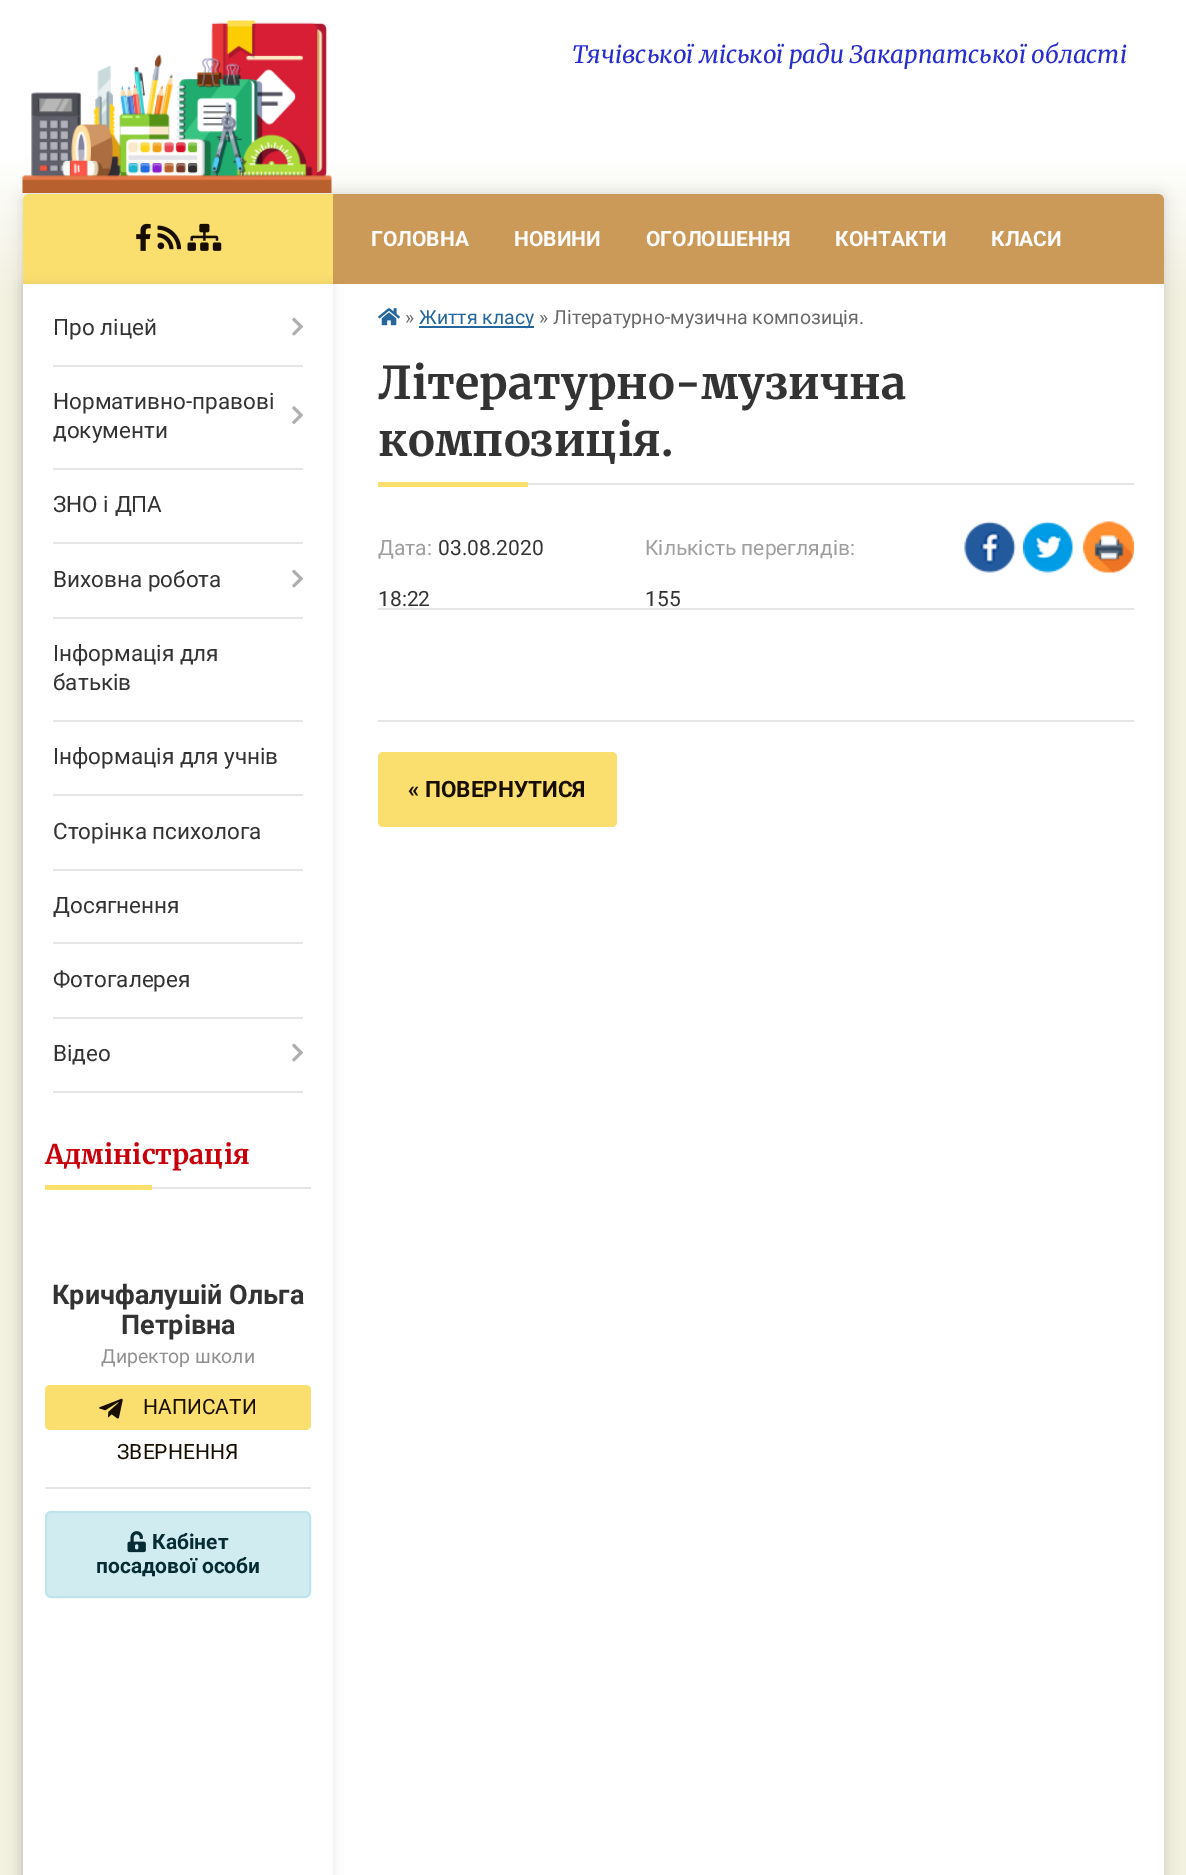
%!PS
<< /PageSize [1186 1875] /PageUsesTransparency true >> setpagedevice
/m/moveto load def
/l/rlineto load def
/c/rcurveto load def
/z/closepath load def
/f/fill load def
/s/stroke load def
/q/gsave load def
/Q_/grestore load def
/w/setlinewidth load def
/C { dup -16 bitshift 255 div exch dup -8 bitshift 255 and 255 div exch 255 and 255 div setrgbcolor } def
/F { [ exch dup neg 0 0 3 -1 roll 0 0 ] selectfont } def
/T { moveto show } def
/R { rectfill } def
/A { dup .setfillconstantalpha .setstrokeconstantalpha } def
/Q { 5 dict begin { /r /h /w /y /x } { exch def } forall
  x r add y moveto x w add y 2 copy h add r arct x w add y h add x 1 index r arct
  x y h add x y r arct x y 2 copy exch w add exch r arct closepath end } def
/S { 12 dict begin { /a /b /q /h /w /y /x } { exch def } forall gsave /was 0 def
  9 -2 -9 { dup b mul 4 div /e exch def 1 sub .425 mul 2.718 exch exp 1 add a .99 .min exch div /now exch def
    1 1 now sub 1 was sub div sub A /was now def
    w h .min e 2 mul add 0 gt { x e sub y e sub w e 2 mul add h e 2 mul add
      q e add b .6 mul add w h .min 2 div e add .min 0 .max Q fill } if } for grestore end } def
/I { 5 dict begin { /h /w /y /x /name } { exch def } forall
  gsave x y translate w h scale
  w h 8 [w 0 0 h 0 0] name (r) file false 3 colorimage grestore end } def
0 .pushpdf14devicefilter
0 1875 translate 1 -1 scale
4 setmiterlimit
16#FFFFFF C
0 0 1186 1875 R
q 0 163 m 1186 0 l 0 1712 l -1186 0 l z clip newpath
<< /ShadingType 2 /ColorSpace /DeviceRGB /Coords [593 -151 593 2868] /Extend [true true] /Function << /FunctionType 3 /Domain [0 1] /Functions [<< /FunctionType 2 /Domain [0 1] /C0 [1 1 1] /C1 [1 1 1] /N 1 >> << /FunctionType 2 /Domain [0 1] /C0 [1 1 1] /C1 [.949 .941 .875] /N 1 >> << /FunctionType 2 /Domain [0 1] /C0 [.949 .941 .875] /C1 [.949 .941 .875] /N 1 >>] /Bounds [.1 .15] /Encode [0 1 0 1 0 1] >> >> shfill Q_
/Merriweather-LightItalic 24 F
16#272DCF C
(Тячівської міської ради Закарпатської області) 572 63 T
16#000000 C
23 194 1141 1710 6 7.5 .15 S
16#FFFFFF C
23 194 1141 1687 6 Q f
(1.rgb) 22 20 310 173 I
16#FADE6E C
29 194 m 304 0 l 0 90 l -310 0 l 0 -84 l 0 -3.5 2.5 -6 6 -6 c z f
(2.rgb) 136 223 15 28 I
(3.rgb) 157 225 25 25 I
(4.rgb) 187 223 35 28 I
16#CC9A58 C
333 194 m 825 0 l 3.5 0 6 2.5 6 6 c 0 84 l -831 0 l z f
q
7 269 m 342 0 l 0 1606 l -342 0 l z 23 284 m 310 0 l 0 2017 l -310 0 l z eoclip newpath
16#000000 C
23 285 310 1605 0 5 .1 S
Q_
/Roboto-Regular 22.5 F
16#333333 C
(Про ліцей) 53 335 T
16#E6E6E6 C
53 365 250 2 R
(5.rgb) 292 317 11 19 I
16#333333 C
(Нормативно-правові) 53 409 T
(документи) 53 438 T
16#E6E6E6 C
53 468 250 2 R
(6.rgb) 292 406 11 18 I
16#333333 C
(ЗНО і ДПА) 53 512 T
16#E6E6E6 C
53 542 250 2 R
16#333333 C
(Виховна робота) 53 587 T
16#E6E6E6 C
53 617 250 2 R
(5.rgb) 292 569 11 19 I
16#333333 C
(Інформація для) 53 661 T
(батьків) 53 690 T
16#E6E6E6 C
53 720 250 2 R
16#333333 C
(Інформація для учнів) 53 764 T
16#E6E6E6 C
53 794 250 2 R
16#333333 C
(Сторінка психолога) 53 839 T
16#E6E6E6 C
53 869 250 2 R
16#333333 C
(Досягнення) 53 913 T
16#E6E6E6 C
53 942 250 2 R
16#333333 C
(Фотогалерея) 53 987 T
16#E6E6E6 C
53 1017 250 2 R
16#333333 C
(Відео) 53 1061 T
16#E6E6E6 C
53 1091 250 2 R
(5.rgb) 292 1043 11 19 I
16#E5E5E5 C
152 1187 159 2 R
/Merriweather-Light 27 F
16#C7000C C
(Адміністрація) 45 1164 T
16#FADE6E C
45 1185 107 5 R
16#E5E5E5 C
45 1487 266 2 R
/Roboto-Bold 27 F
16#333333 C
(Кричфалушій Ольга) 52 1304 T
(Петрівна) 121 1334 T
/Roboto-Regular 19.5 F
16#909090 C
(Директор школи) 101 1363 T
16#FADE6E C
45 1385 266 45 5 Q f
(7.rgb) 99 1398 24 21 I
/Roboto-Regular 21 F
16#170E00 C
(НАПИСАТИ) 143 1414 T
(ЗВЕРНЕННЯ) 117 1459 T
16#D1ECF1 C
46 1512 264 85 5 Q q f Q_
16#BEE5EB C
2 w
s
(8.rgb) 127 1531 19 22 I
/Roboto-Bold 21 F
16#062C33 C
(Кабінет) 152 1549 T
(посадової особи) 96 1573 T
16#FCFCFC C
(ГОЛОВНА) 371 246 T
(НОВИНИ) 514 246 T
(ОГОЛОШЕННЯ) 646 246 T
(КОНТАКТИ) 835 246 T
(КЛАСИ) 991 246 T
(9.rgb) 378 308 22 18 I
/Roboto-Regular 19.5 F
16#696969 C
(») 405 324 T
16#25669C C
419 326 115 2 R
(Життя класу) 419 324 T
16#696969 C
(» Літературно-музична композиція.) 539 324 T
16#E5E5E5 C
528 483 606 2 R
/Merriweather-Light 45 F
16#333333 C
(Літературно-музична) 378 399 T
(композиція.) 378 456 T
16#FADE6E C
378 482 150 5 R
/Roboto-Regular 21 F
16#9F9F9F C
(Дата:) 378 555 T
16#333333 C
(03.08.2020) 438 555 T
(18:22) 378 606 T
16#9F9F9F C
(Кількість переглядів:) 645 555 T
16#333333 C
(155) 645 606 T
(10.rgb) 964 521 52 52 I
(11.rgb) 1023 521 50 52 I
(12.rgb) 1083 521 51 52 I
16#E5E5E5 C
378 608 756 2 R
378 720 756 2 R
16#FADE6E C
378 752 239 75 5 Q f
/Roboto-Bold 22.5 F
16#170E00 C
(« ПОВЕРНУТИСЯ) 408 797 T
.poppdf14devicefilter showpage
